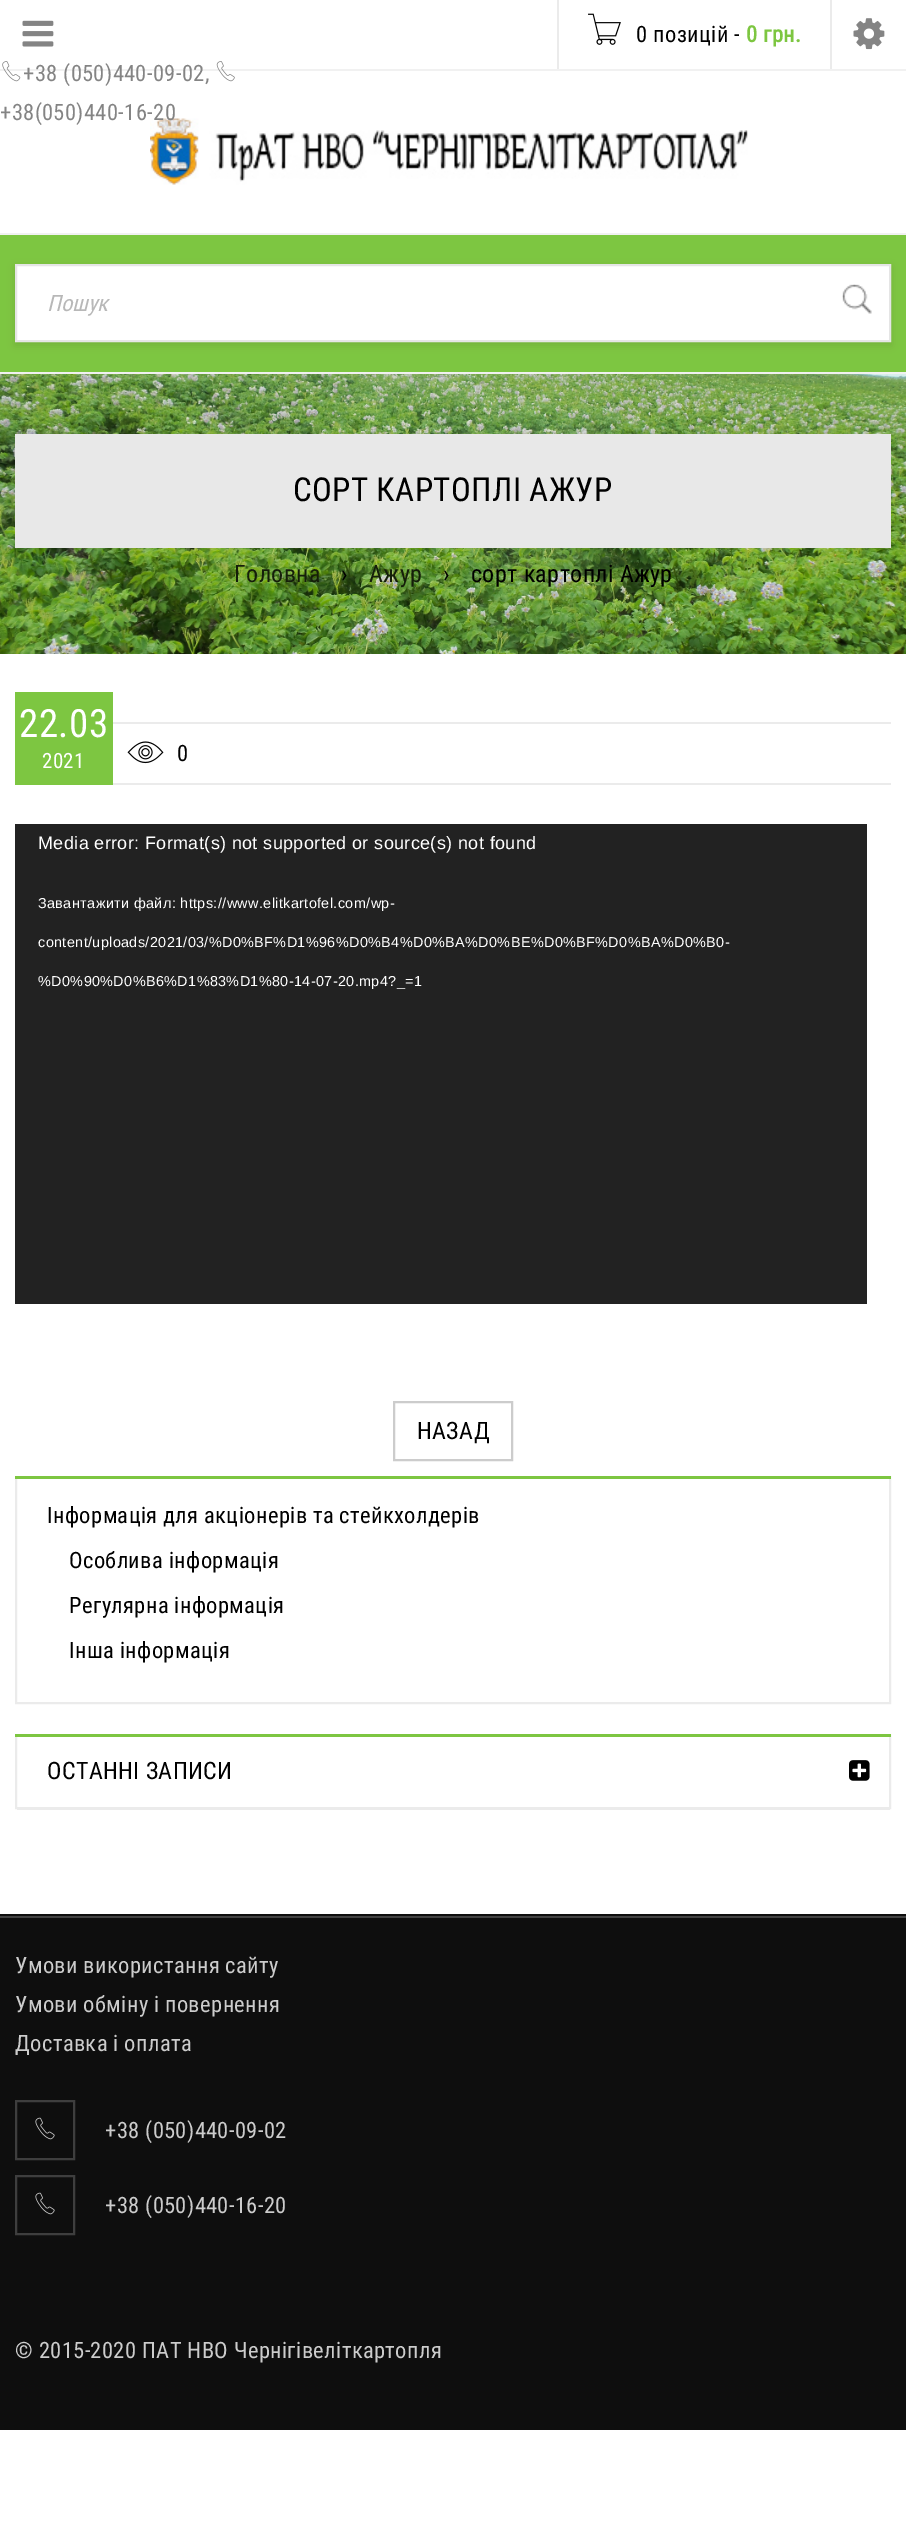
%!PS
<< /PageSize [906 2539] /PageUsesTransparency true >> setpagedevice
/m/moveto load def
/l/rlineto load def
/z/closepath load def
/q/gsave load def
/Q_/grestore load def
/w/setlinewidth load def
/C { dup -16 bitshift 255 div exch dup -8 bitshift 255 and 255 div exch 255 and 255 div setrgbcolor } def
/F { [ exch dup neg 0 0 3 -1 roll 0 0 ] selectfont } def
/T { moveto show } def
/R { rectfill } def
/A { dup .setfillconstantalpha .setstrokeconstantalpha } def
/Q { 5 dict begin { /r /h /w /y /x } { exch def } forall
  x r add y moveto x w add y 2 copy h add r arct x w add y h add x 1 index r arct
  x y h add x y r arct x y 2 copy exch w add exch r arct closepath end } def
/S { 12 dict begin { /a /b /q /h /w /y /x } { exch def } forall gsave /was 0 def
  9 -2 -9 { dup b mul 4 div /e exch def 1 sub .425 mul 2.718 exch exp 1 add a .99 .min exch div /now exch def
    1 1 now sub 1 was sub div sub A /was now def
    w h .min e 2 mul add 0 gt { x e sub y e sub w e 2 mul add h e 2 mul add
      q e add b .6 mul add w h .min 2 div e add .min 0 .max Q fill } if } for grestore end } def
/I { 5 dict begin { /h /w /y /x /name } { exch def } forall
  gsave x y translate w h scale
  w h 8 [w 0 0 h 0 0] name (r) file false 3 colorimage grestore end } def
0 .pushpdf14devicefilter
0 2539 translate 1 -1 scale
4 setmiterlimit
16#FFFFFF C
0 0 906 2539 R
16#F1F1F1 C
0 69 906 2 R
16#EBEBEB C
830 0 2 69 R
557 0 2 69 R
(1.rgb) 588 13 33 32 I
/RobotoCondensed-Regular 22.5 F
16#000000 C
636 42 m .38 0 (0 позицій -) ashow
/RobotoCondensed-Bold 22.5 F
16#7DC641 C
746 42 m .38 0 (0 грн.) ashow
(2.rgb) 853 18 32 32 I
(3.rgb) 22 20 32 27 I
(4.rgb) 2 61 19 21 I
/RobotoCondensed-Regular 22.5 F
16#848484 C
23 81 m .38 0 (+38 \(050\)440-09-02,) ashow
(5.rgb) 216 61 19 21 I
(6.rgb) 150 118 598 67 I
0 120 m .38 0 (+38\(050\)440-16-20) ashow
16#7DC641 C
0 235 906 137 R
16#F1F1F1 C
0 233 906 2 R
0 372 906 2 R
16#FFFFFF C
17 266 872 74 R
q
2 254 m 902 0 l 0 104 l -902 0 l z 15 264 m 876 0 l 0 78 l -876 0 l z eoclip newpath
16#000000 C
15 267 876 78 0 4 .1 S
Q_
16#E5E5E5 C
2 w
16 265 874 76 rectstroke
/RobotoCondensed-Italic 22.5 F
16#B8B8B8 C
(Пошук) 47 311 T
(7.rgb) 842 284 30 30 I
(8.rgb) 0 374 906 280 I
16#E8E8E8 C
15 434 876 114 R
/RobotoCondensed-Regular 33 F
16#000000 C
293 501 m .38 0 (СОРТ КАРТОПЛІ АЖУР) ashow
/RobotoCondensed-Regular 24 F
16#151E0A C
234 582 m .38 0 (Головна) ashow
16#000000 C
341 582 m .38 0 (›) ashow
16#151E0A C
369 582 m .38 0 (Ажур) ashow
16#000000 C
443 582 m .38 0 (›) ashow
471 582 m .38 0 (сорт картоплі Ажур) ashow
16#EBEBEB C
113 722 778 2 R
113 783 778 2 R
16#7DC641 C
15 692 98 93 R
/RobotoCondensed-Regular 39 F
16#FFFFFF C
19 737 m .38 0 (22.03) ashow
/RobotoCondensed-Regular 21 F
42 768 m .38 0 (2021) ashow
(9.rgb) 127 741 37 23 I
/RobotoCondensed-Regular 22.5 F
16#000000 C
177 761 m .38 0 (0) ashow
16#222222 C
15 824 852 480 R
/LiberationSans-Regular 18 F
16#FFFFFF C
38 849 m .38 0 (Media error: Format\(s\) not supported or source\(s\) not found) ashow
/LiberationSans-Regular 14.4 F
38 908 m .38 0 (Завантажити файл: https://www.elitkartofel.com/wp-) ashow
38 947 m .38 0 (content/uploads/2021/03/%D0%BF%D1%96%D0%B4%D0%BA%D0%BE%D0%BF%D0%BA%D0%B0-) ashow
38 986 m .38 0 (%D0%90%D0%B6%D1%83%D1%80-14-07-20.mp4?_=1) ashow
16#CCCCCC C
394 1402 118 58 rectstroke
/RobotoCondensed-Regular 24 F
16#000000 C
417 1439 m .38 0 (НАЗАД) ashow
16#EBEBEB C
16 1477 874 226 rectstroke
16#7DC641 C
15 1476 876 3 R
/RobotoCondensed-Regular 22.5 F
16#000000 C
47 1523 m .38 0 (Інформація для акціонерів та стейкхолдерів) ashow
69 1568 m .38 0 (Особлива інформація) ashow
69 1613 m .38 0 (Регулярна інформація) ashow
69 1658 m .38 0 (Інша інформація) ashow
16#EBEBEB C
16 1735 874 73 rectstroke
16#7DC641 C
15 1734 876 3 R
/RobotoCondensed-Regular 24 F
16#000000 C
47 1779 m .38 0 (ОСТАННІ ЗАПИСИ) ashow
16#EBEBEB C
17 1809 873 1 R
(10.rgb) 849 1760 21 21 I
16#0E0E0E C
0 1914 906 516 R
16#424242 C
0 1916 906 2 R
/RobotoCondensed-Regular 22.5 F
16#CCCCCC C
15 1973 m .38 0 (Умови використання сайту) ashow
15 2012 m .38 0 (Умови обміну і повернення) ashow
15 2051 m .38 0 (Доставка і оплата) ashow
(11.rgb) 35 2117 20 23 I
16#3E3E3E C
16 2101 58 58 rectstroke
16#CCCCCC C
105 2138 m .38 0 (+38 \(050\)440-09-02) ashow
(11.rgb) 35 2192 20 23 I
16#3E3E3E C
16 2176 58 58 rectstroke
16#CCCCCC C
105 2213 m .38 0 (+38 \(050\)440-16-20) ashow
15 2358 m .38 0 (© 2015-2020 ПАТ НВО Чернігівеліткартопля) ashow
.poppdf14devicefilter showpage
